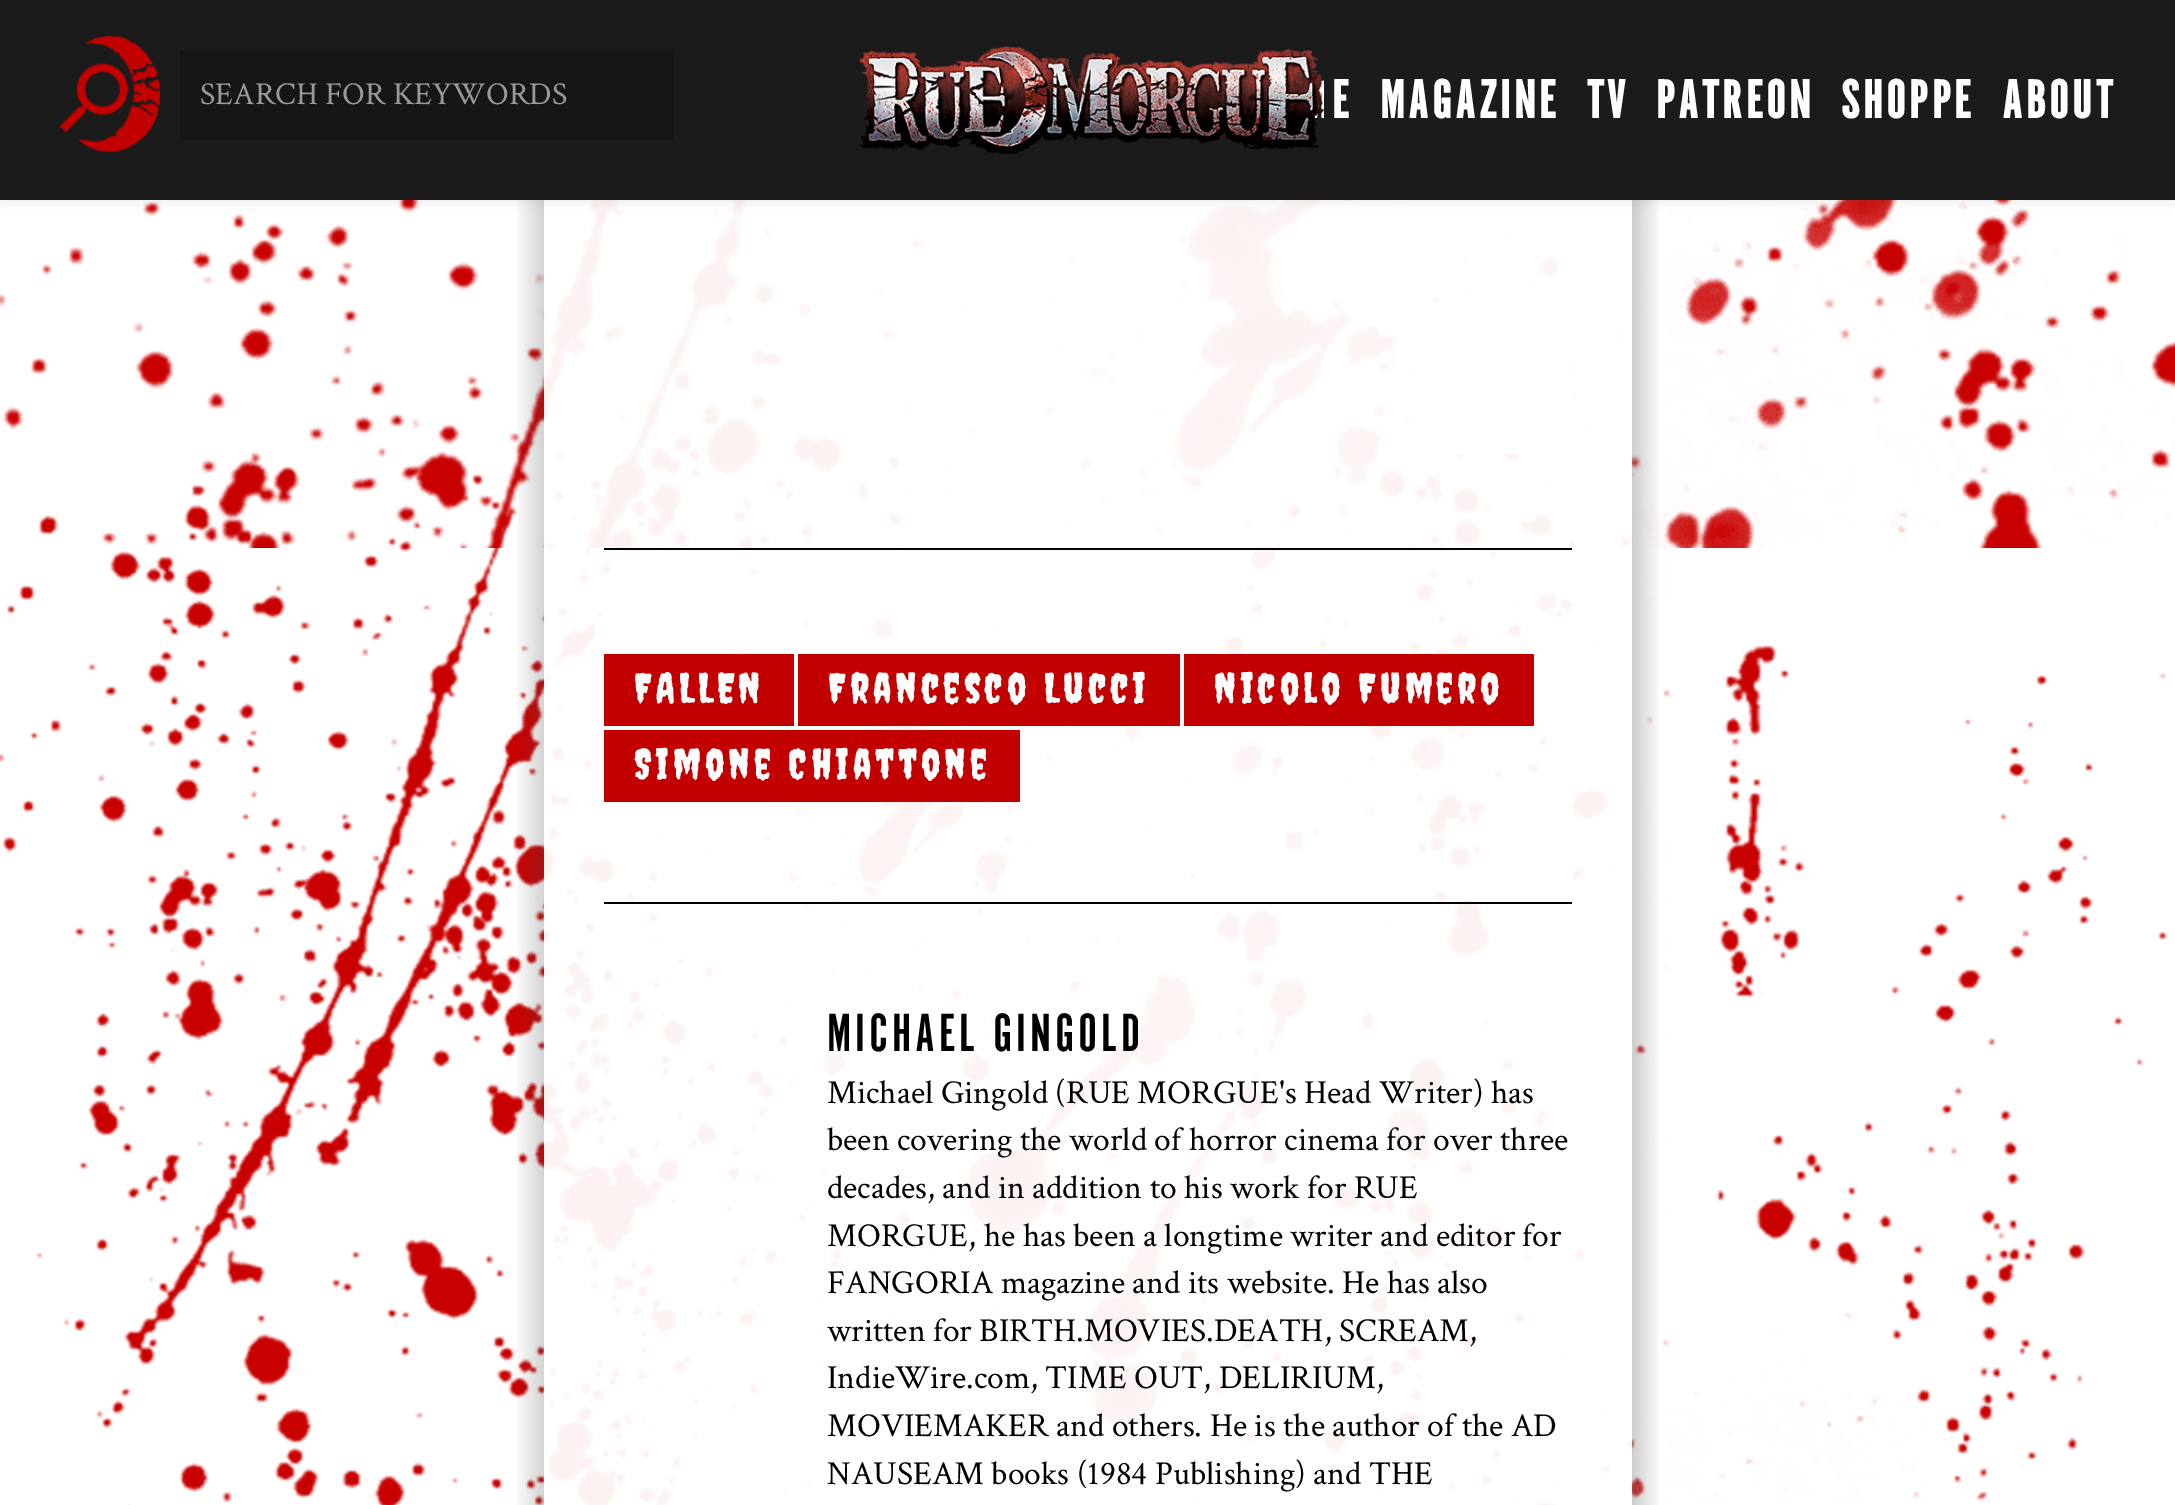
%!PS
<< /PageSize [2175 1505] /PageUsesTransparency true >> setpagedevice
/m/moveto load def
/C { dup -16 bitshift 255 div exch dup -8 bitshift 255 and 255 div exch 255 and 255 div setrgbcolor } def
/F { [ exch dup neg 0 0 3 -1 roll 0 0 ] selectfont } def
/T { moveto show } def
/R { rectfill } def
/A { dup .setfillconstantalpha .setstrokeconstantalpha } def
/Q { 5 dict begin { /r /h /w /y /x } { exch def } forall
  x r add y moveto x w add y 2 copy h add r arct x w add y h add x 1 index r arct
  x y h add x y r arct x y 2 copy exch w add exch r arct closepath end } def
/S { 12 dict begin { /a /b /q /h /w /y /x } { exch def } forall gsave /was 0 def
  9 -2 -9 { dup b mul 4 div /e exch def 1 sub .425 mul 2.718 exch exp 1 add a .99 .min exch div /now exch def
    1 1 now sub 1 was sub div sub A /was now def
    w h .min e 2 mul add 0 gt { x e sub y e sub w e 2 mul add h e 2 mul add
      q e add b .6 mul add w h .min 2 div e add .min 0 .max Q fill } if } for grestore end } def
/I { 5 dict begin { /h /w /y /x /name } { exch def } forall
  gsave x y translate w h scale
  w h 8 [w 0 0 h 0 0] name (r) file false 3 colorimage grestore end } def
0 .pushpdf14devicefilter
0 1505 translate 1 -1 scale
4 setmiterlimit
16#FFFFFF C
0 0 2175 1505 R
(3.rgb) 0 454 2168 1051 I
(4.rgb) 0 200 2175 348 I
0.95 A
544 200 1088 348 R
1 A
(5.rgb) 517 200 1142 348 I
16#000000 C
0 0 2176 200 0 7 .1 S
16#1B1B1B C
0 0 2175 200 R
(1.rgb) 860 46 464 108 I
(2.rgb) 60 36 100 116 I
16#161616 C
180 50 494 90 R
/CrimsonText-Regular 32 F
16#9B9999 C
(SEARCH FOR KEYWORDS) 200 104 T
/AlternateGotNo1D-Bold 56 F
16#FFFFFF C
1332 118 m 4 0 (E) ashow
1380 118 m 4 0 (MAGAZINE) ashow
1587 118 m 4 0 (TV) ashow
1656 118 m 4 0 (PATREON) ashow
1841 118 m 4 0 (SHOPPE) ashow
2002 118 m 4 0 (ABOUT) ashow
0.95 A
544 548 1073 356 R
1 A
(6.rgb) 517 548 1142 356 I
16#000000 C
604 548 968 2 R
604 902 968 2 R
16#C20000 C
604 654 190 72 R
/Creepster-Regular 42 F
16#FFFFFF C
634 703 m 4 0 (FALLEN) ashow
16#C20000 C
798 654 382 72 R
16#FFFFFF C
828 703 m 4 0 (Francesco Lucci) ashow
16#C20000 C
1184 654 350 72 R
16#FFFFFF C
1214 703 m 4 0 (Nicolo Fumero) ashow
16#C20000 C
604 730 416 72 R
16#FFFFFF C
634 779 m 4 0 (Simone Chiattone) ashow
0.95 A
544 904 1088 601 R
1 A
(7.rgb) 517 904 1142 601 I
/AlternateGotNo1D-Regular 56 F
16#000000 C
827 1051 m 4 0 (MICHAEL GINGOLD) ashow
/CrimsonText-Regular 33.6 F
(Michael Gingold \(RUE MORGUE's Head Writer\) has) 827 1103 T
(been covering the world of horror cinema for over three) 827 1150 T
(decades, and in addition to his work for RUE) 827 1198 T
(MORGUE, he has been a longtime writer and editor for) 827 1246 T
(FANGORIA magazine and its website. He has also) 827 1293 T
(written for BIRTH.MOVIES.DEATH, SCREAM,) 827 1341 T
(IndieWire.com, TIME OUT, DELIRIUM,) 827 1388 T
(MOVIEMAKER and others. He is the author of the AD) 827 1436 T
(NAUSEAM books \(1984 Publishing\) and THE) 827 1484 T
.poppdf14devicefilter showpage
